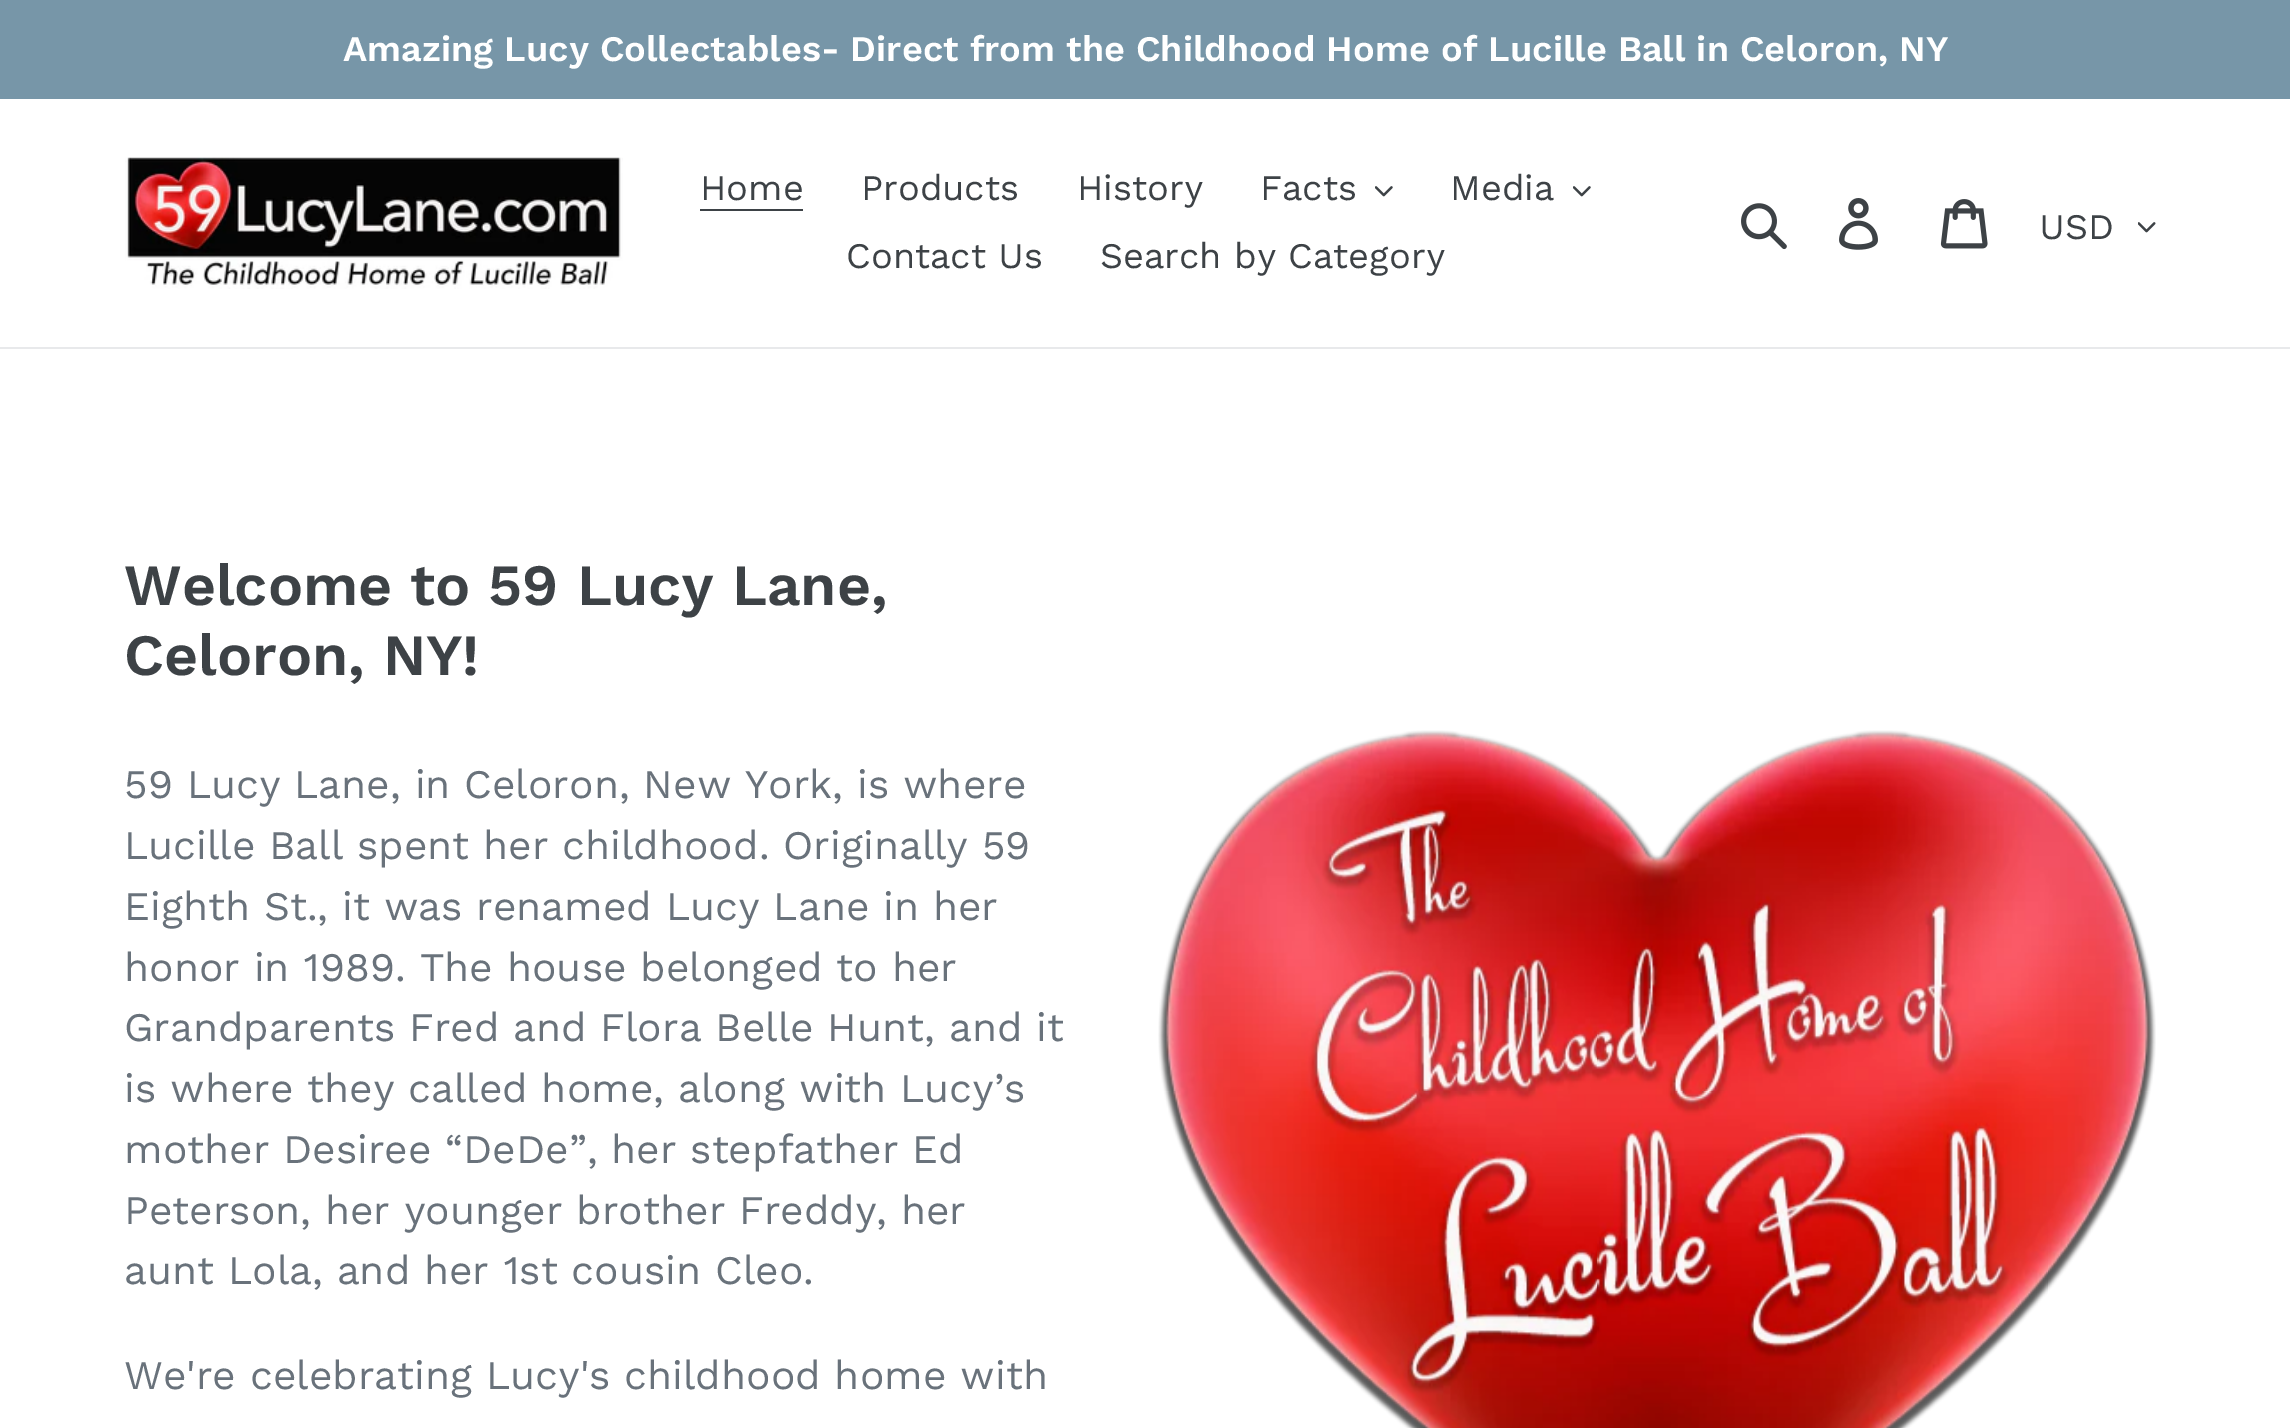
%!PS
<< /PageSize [2290 1428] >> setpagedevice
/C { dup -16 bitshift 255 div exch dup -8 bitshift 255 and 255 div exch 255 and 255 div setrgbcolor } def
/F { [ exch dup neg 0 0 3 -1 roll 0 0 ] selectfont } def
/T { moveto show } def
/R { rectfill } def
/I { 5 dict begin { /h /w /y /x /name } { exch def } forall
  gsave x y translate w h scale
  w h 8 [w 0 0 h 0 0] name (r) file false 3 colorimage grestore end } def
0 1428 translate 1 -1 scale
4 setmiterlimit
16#FFFFFF C
0 0 2290 1428 R
16#7796A8 C
0 0 2290 99 R
/WorkSans-SemiBold 36 F
16#FFFFFF C
(Amazing Lucy Collectables- Direct from the Childhood Home of Lucille Ball in Celoron, NY) 343 61 T
16#E8E9EB C
0 347 2290 2 R
(1.rgb) 125 157 498 132 I
/WorkSans-Regular 36 F
16#3D4246 C
(Home) 700 200 T
700 209 103 2 R
(Products) 861 200 T
(History) 1077 200 T
(Facts) 1260 200 T
(2.rgb) 1375 186 18 11 I
(Media) 1450 200 T
(2.rgb) 1573 186 18 11 I
(Contact Us) 846 268 T
(Search by Category) 1100 268 T
(3.rgb) 1741 203 46 47 I
(4.rgb) 1839 198 39 52 I
(5.rgb) 1940 199 48 50 I
(USD) 2039 239 T
(6.rgb) 2138 222 18 11 I
/WorkSans-SemiBold 58.5 F
(Welcome to 59 Lucy Lane,) 124 605 T
(Celoron, NY!) 124 675 T
/WorkSans-Regular 40.5 F
16#69727B C
(59 Lucy Lane, in Celoron, New York, is where) 124 798 T
(Lucille Ball spent her childhood. Originally 59) 124 859 T
(Eighth St., it was renamed Lucy Lane in her) 124 920 T
(honor in 1989. The house belonged to her) 124 981 T
(Grandparents Fred and Flora Belle Hunt, and it) 124 1041 T
(is where they called home, along with Lucy’s) 124 1102 T
(mother Desiree “DeDe”, her stepfather Ed) 124 1163 T
(Peterson, her younger brother Freddy, her) 124 1224 T
(aunt Lola, and her 1st cousin Cleo.) 124 1284 T
(We're celebrating Lucy's childhood home with) 124 1389 T
(7.rgb) 1158 730 998 698 I
showpage
